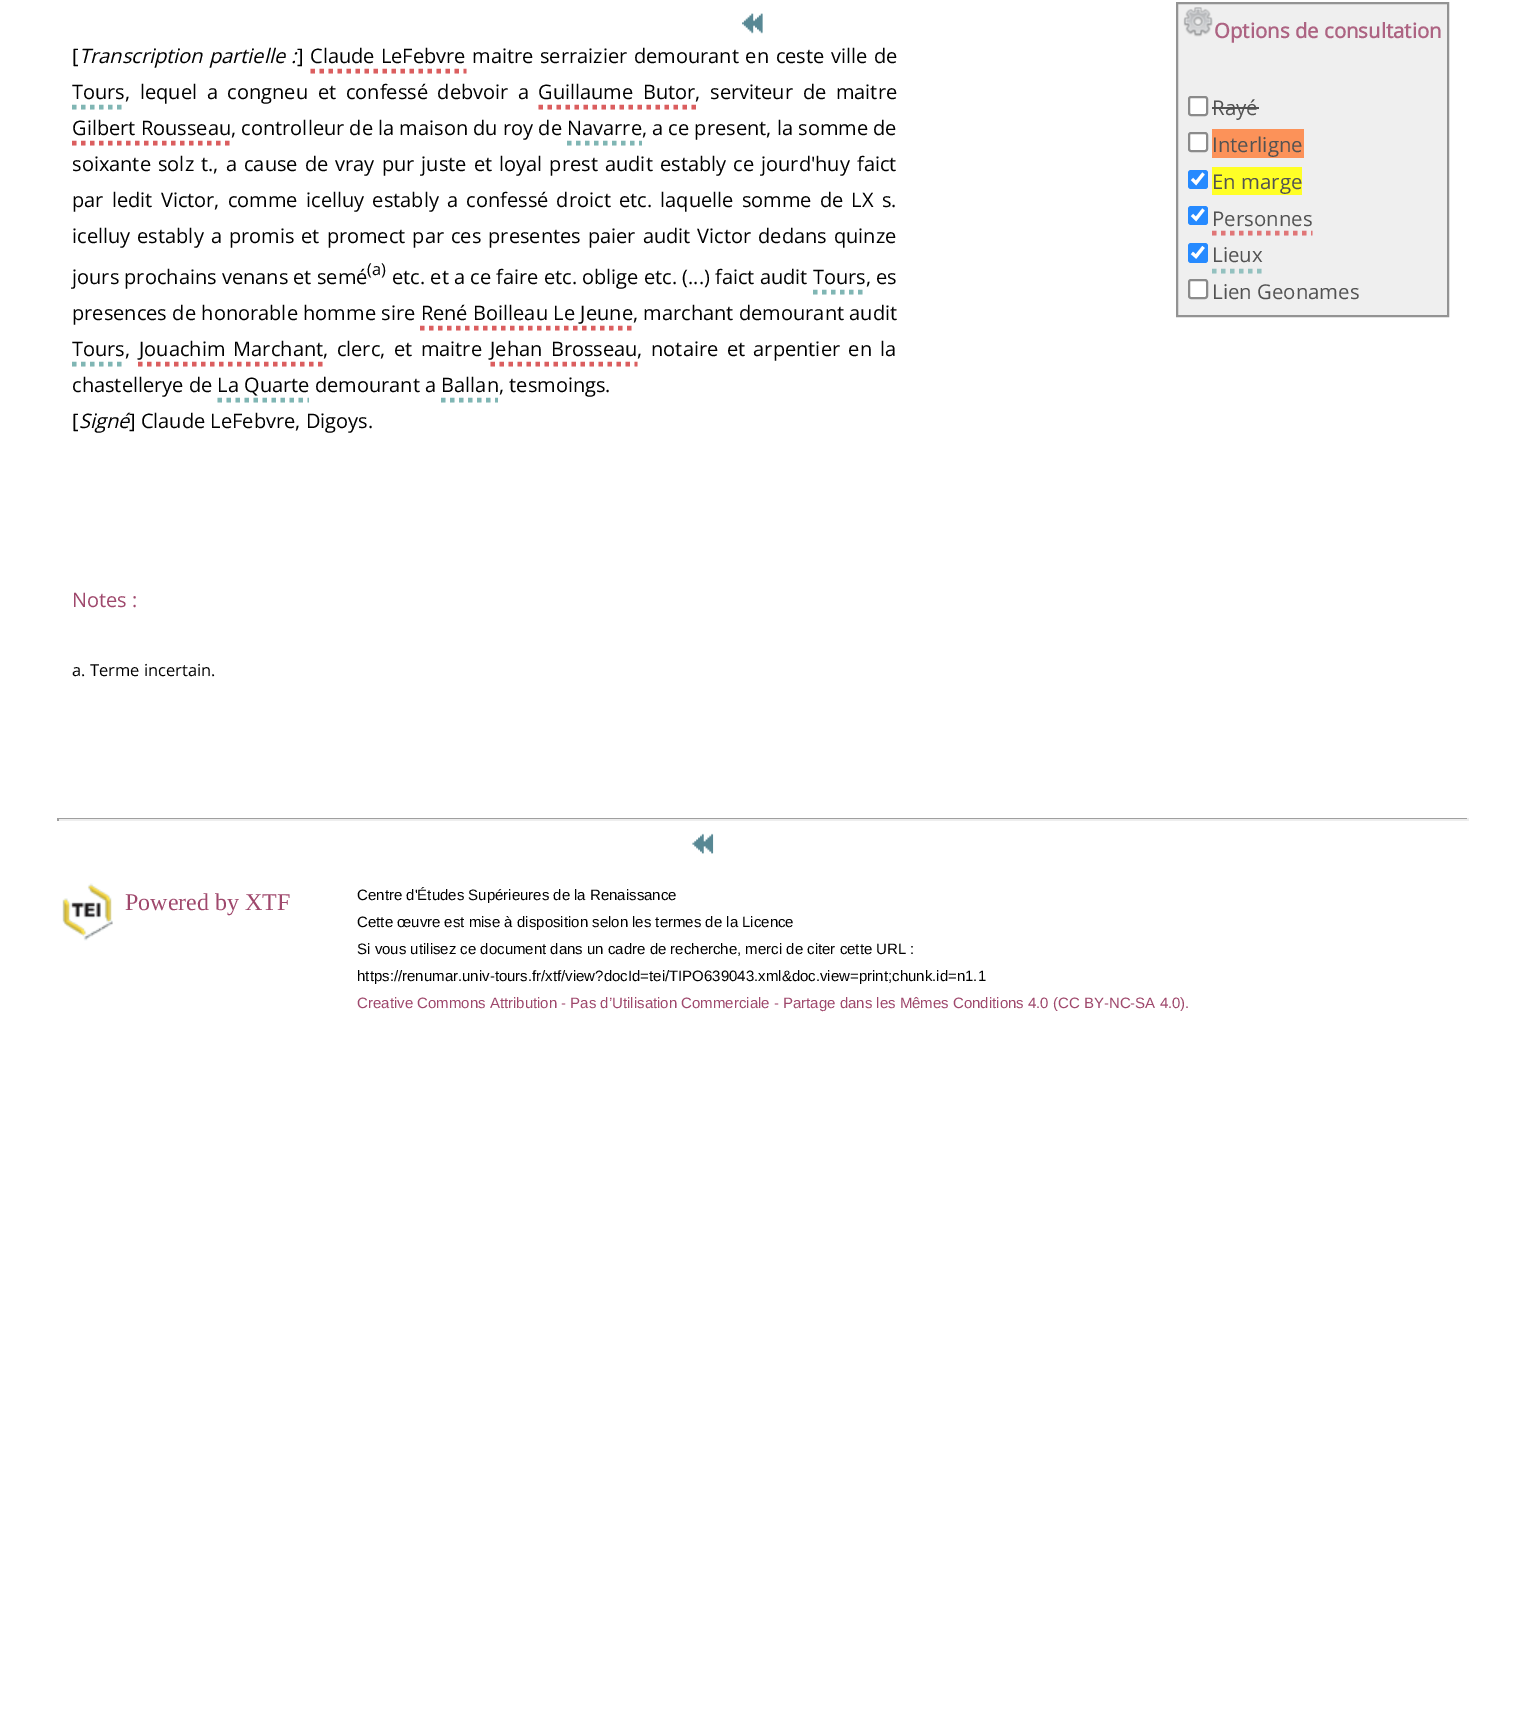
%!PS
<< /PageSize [1525 1714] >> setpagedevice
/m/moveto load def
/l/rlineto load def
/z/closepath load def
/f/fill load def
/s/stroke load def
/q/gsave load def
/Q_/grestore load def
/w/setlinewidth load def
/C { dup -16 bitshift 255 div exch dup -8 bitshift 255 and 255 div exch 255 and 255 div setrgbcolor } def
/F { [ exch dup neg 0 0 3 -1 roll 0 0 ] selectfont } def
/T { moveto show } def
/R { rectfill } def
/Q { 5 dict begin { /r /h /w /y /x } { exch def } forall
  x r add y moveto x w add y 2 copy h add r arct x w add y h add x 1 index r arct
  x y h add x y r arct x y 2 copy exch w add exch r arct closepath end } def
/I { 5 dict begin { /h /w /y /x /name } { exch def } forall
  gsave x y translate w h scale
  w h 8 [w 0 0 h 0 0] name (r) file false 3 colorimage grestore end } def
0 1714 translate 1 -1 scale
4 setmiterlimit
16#FFFFFF C
0 0 1525 1714 R
/OpenSans-Regular 20 F
16#000000 C
([) 72 63 T
/OpenSans-Italic 20 F
79 63 m 1 0 32 (Transcription partielle :) widthshow
/OpenSans-Regular 20 F
(]) 297 63 T
310 63 m 1 0 32 (Claude LeFebvre) widthshow
16#DB5E5F C
4.5 w
[4.5 4.5] 0 setdash
310.5 71 m 156 0 l s
16#000000 C
472 63 m 1.5 0 32 (maitre serraizier demourant en ceste ville de) widthshow
(Tours) 72 99 T
16#80B6B4 C
72 107 m 52.5 0 l s
16#000000 C
125 99 m 4.5 0 32 (, lequel a congneu et confessé debvoir a) widthshow
538 99 m 4.5 0 32 (Guillaume Butor, serviteur de maitre) widthshow
16#DB5E5F C
538.5 107 m 157.5 0 l s
16#000000 C
(Gilbert Rousseau, controlleur de la maison du roy de Navarre, a ce present, la somme de) 72 135 T
16#DB5E5F C
72 143 m 159 0 l s
16#80B6B4 C
567 143 m 75 0 l s
16#000000 C
72 171 m 1.9 0 32 (soixante solz t., a cause de vray pur juste et loyal prest audit estably ce jourd'huy faict) widthshow
72 207 m 3 0 32 (par ledit Victor, comme icelluy estably a confessé droict etc. laquelle somme de LX s.) widthshow
72 243 m 1.8 0 32 (icelluy estably a promis et promect par ces presentes paier audit Victor dedans quinze) widthshow
(jours prochains venans et semé) 72 284 T
/OpenSans-Regular 16.5 F
(\(a\)) 367 275 T
/OpenSans-Regular 20 F
(etc. et a ce faire etc. oblige etc. \(...\) faict audit Tours, es) 392 284 T
16#80B6B4 C
813 292 m 52.5 0 l s
16#000000 C
72 320 m .25 0 32 (presences de honorable homme sire René Boilleau Le Jeune, marchant demourant audit) widthshow
16#DB5E5F C
420 328 m 213 0 l s
16#000000 C
(Tours,) 72 356 T
16#80B6B4 C
72 364 m 52.5 0 l s
16#000000 C
139 356 m 3 0 32 (Jouachim Marchant) widthshow
16#DB5E5F C
138 364 m 184.5 0 l s
16#000000 C
323 356 m 3.25 0 32 (, clerc, et maitre) widthshow
490 356 m 3.25 0 32 (Jehan Brosseau, notaire et arpentier en la) widthshow
16#DB5E5F C
490.5 364 m 147 0 l s
16#000000 C
(chastellerye de La Quarte demourant a Ballan, tesmoings.) 72 392 T
16#80B6B4 C
217.5 400 m 91.5 0 l s
441 400 m 57 0 l s
16#000000 C
([) 72 428 T
/OpenSans-Italic 20 F
(Signé) 79 428 T
/OpenSans-Regular 20 F
(] Claude LeFebvre, Digoys.) 129 428 T
16#9F486C C
(Notes :) 72 607 T
/OpenSans-Regular 16.5 F
16#000000 C
(a. Terme incertain.) 72 676 T
(1.rgb) 742 13 21 21 I
16#EFEFEF C
1177 3 m 271 0 l 0 313 l -271 0 l z q f Q_
16#939393 C
2 w
[] 0 setdash
s
(2.rgb) 1183 7 30 30 I
/OpenSans-Bold 20.4 F
16#AD6382 C
(Options de consultation) 1214 38 T
16#FFFFFF C
1189 97 18 18 2 Q q f Q_
16#8B8B8B C
s
/OpenSans-Regular 20.4 F
16#525252 C
(Rayé) 1212 115 T
1212 107 47 2 R
16#FFFFFF C
1189 133 18 18 2 Q q f Q_
16#8B8B8B C
s
16#FC9259 C
1212 129 92 29 R
16#525252 C
(Interligne) 1212 152 T
16#268AFF C
1188 170 20 19 3 Q f
16#FFFFFF C
3.1 w
1192 179 m 4 4 l 7.5 -9.5 l s
16#FFFF26 C
1212 167 90 28 R
16#525252 C
(En marge) 1212 189 T
16#268AFF C
1188 206 20 19 3 Q f
16#FFFFFF C
1192 215 m 4 4 l 7.5 -9.5 l s
16#525252 C
(Personnes) 1212 226 T
16#E07677 C
4.5 w
[4.5 4.5] 0 setdash
1212 233 m 100.5 0 l s
16#268AFF C
1188 243 20 20 3 Q f
16#FFFFFF C
3.1 w
[] 0 setdash
1192 253 m 4 3.5 l 7.5 -9.5 l s
16#525252 C
(Lieux) 1212 262 T
16#93C1BF C
4.5 w
[4.5 4.5] 0 setdash
1212 271 m 51 0 l s
16#FFFFFF C
1189 280 18 18 2 Q q f Q_
16#8B8B8B C
2 w
[] 0 setdash
s
16#525252 C
(Lien Geonames) 1212 299 T
16#9F9F9F C
57 818 1412 1 R
16#EEEEEE C
1467 818 2 3 R
57 819 1412 2 R
16#9F9F9F C
57 818 2 3 R
(3.rgb) 692 833 22 21 I
(4.rgb) 62 883 51 58 I
/LiberationSerif-Regular 24 F
16#9F486C C
(Powered by XTF) 125 910 T
/LiberationSans-Regular 15 F
16#000000 C
(Centre d'Études Supérieures de la Renaissance) 357 900 T
(Cette œuvre est mise à disposition selon les termes de la Licence) 357 927 T
(Si vous utilisez ce document dans un cadre de recherche, merci de citer cette URL :) 357 954 T
(https://renumar.univ-tours.fr/xtf/view?docId=tei/TIPO639043.xml&doc.view=print;chunk.id=n1.1) 357 981 T
16#9F486C C
(Creative Commons Attribution - Pas d’Utilisation Commerciale - Partage dans les Mêmes Conditions 4.0 \(CC BY-NC-SA 4.0\).) 357 1008 T
showpage
